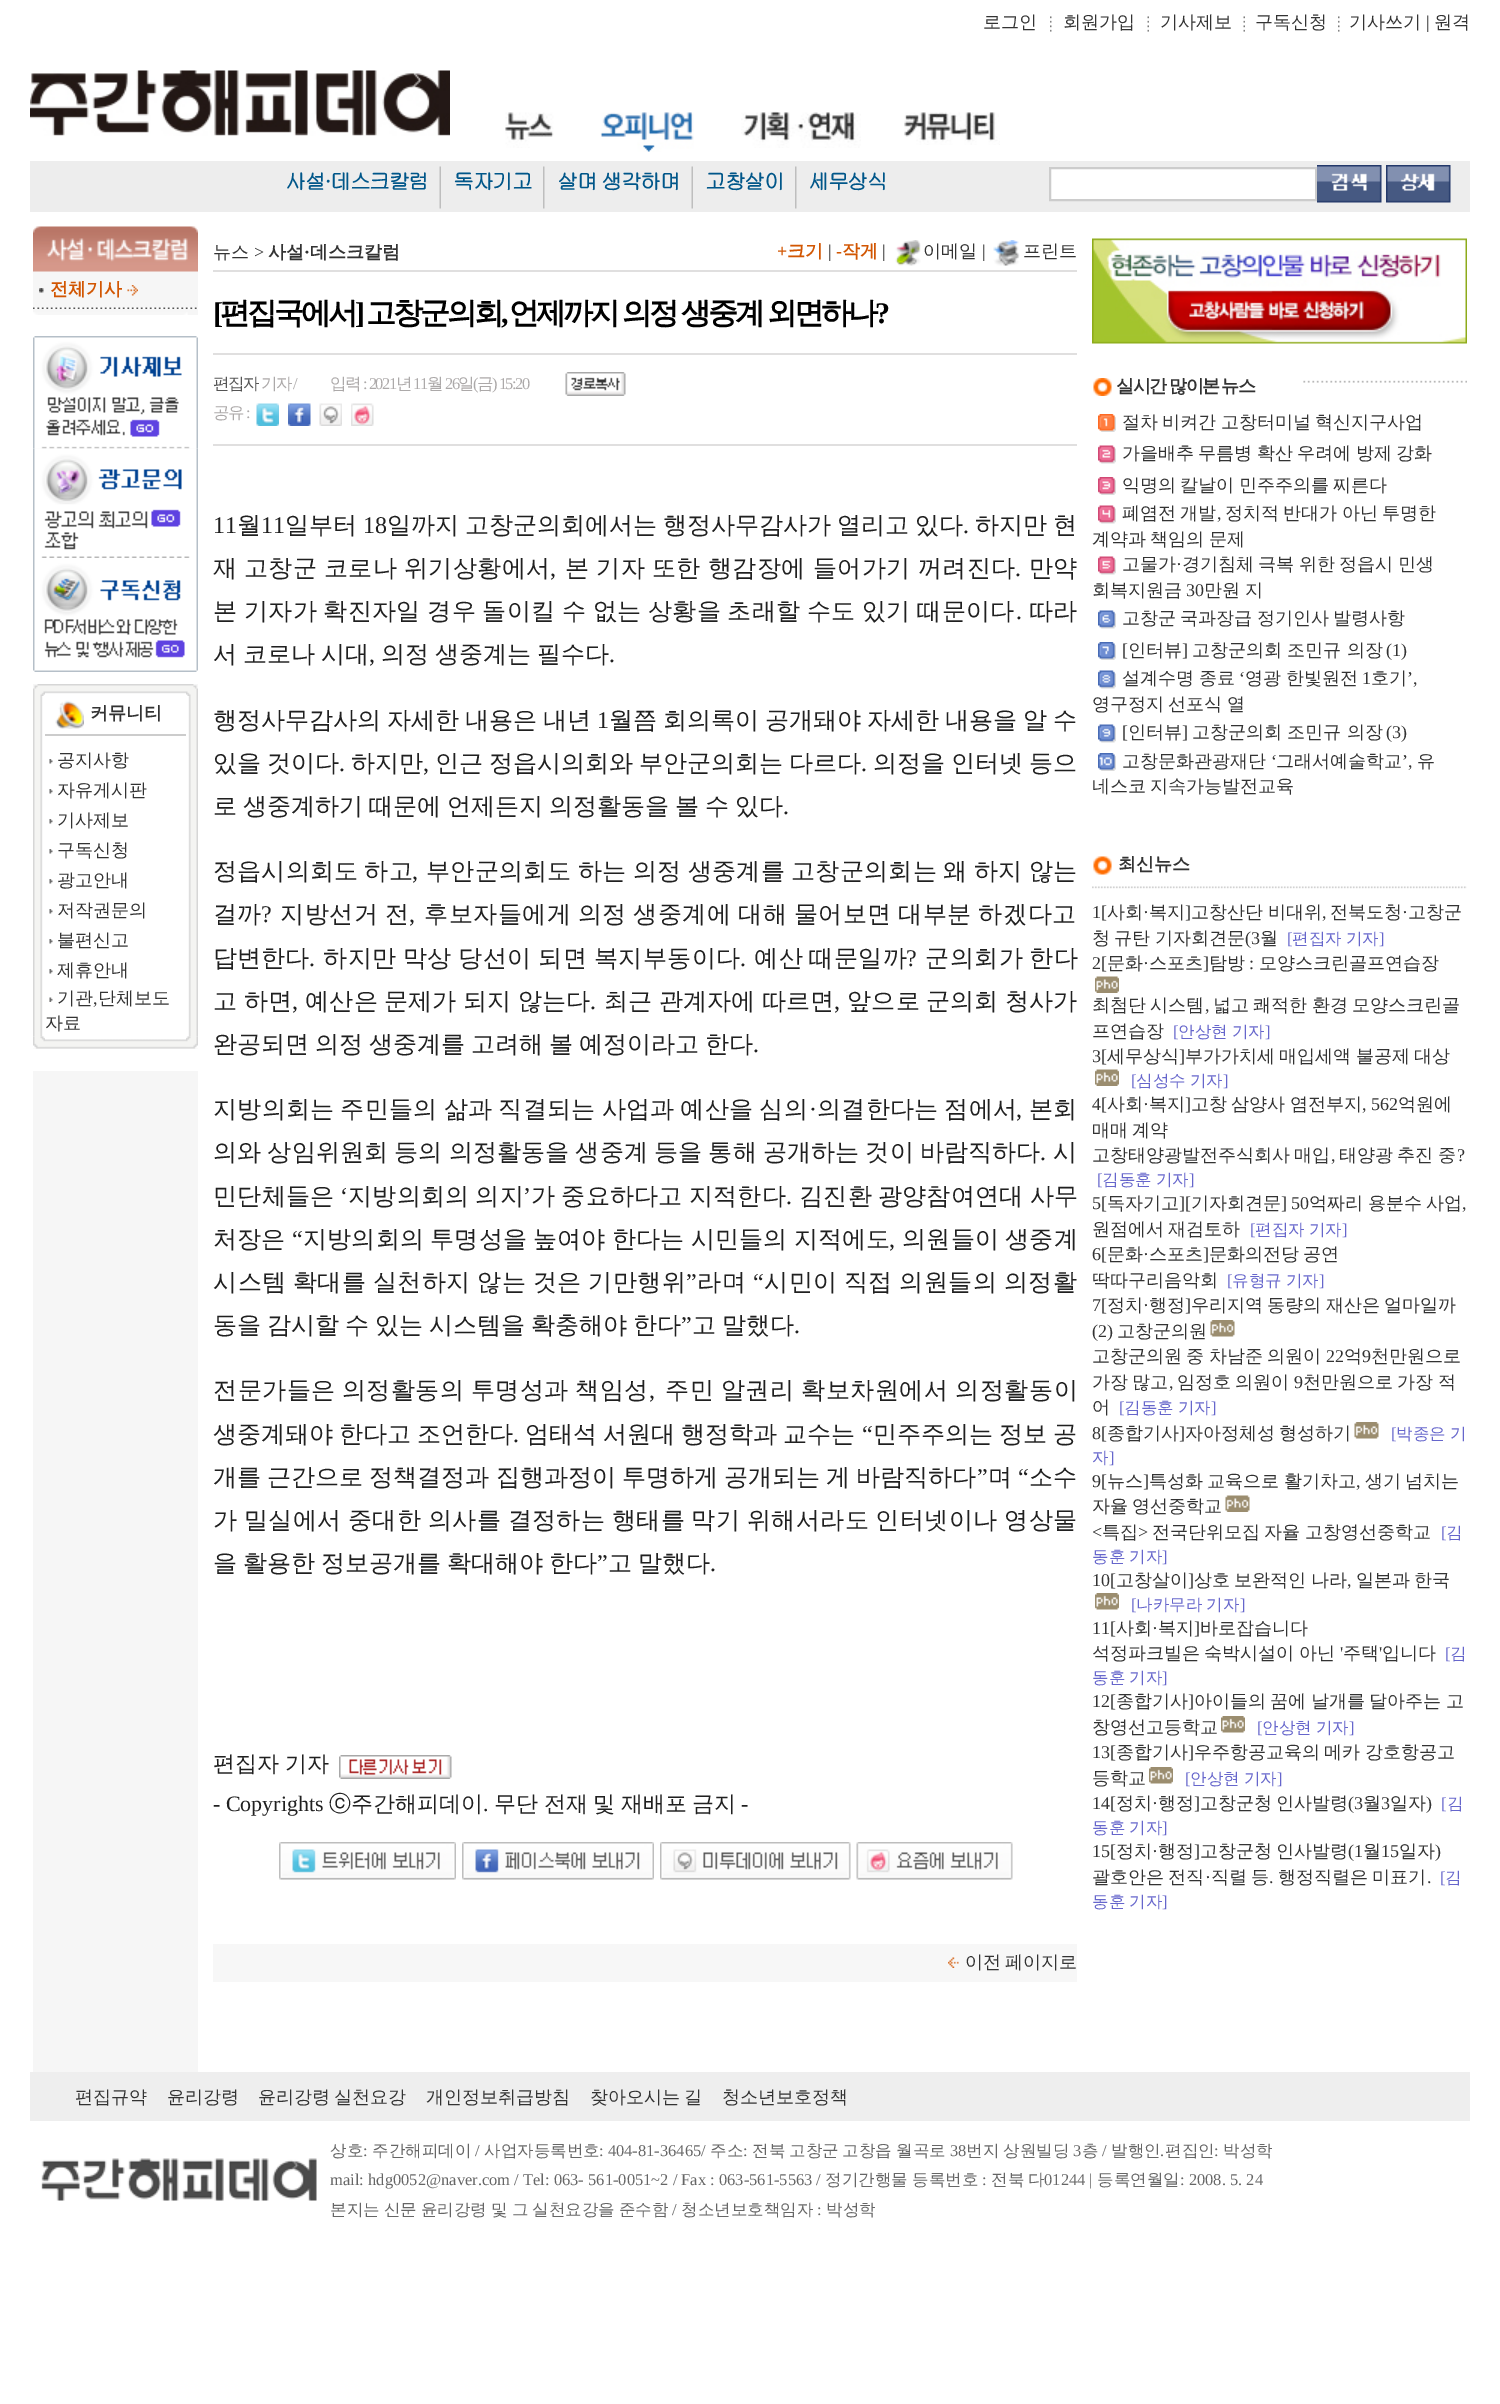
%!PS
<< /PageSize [1500 2404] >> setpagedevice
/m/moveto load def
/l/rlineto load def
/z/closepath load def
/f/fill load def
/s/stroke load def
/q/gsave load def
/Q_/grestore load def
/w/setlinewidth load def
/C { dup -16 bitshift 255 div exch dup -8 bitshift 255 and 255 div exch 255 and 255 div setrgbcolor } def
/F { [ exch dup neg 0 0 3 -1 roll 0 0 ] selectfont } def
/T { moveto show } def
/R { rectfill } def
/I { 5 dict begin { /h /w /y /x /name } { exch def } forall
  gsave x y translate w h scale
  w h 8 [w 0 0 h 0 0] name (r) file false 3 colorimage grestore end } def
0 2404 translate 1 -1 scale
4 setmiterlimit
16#FFFFFF C
0 0 1500 2404 R
/WenQuanYiZenHei-Medium 18 F
16#333333 C
(로그인) 983 28 T
(1.rgb) 1050 16 2 16 I
(회원가입) 1063 28 T
(2.rgb) 1147 16 2 16 I
(기사제보) 1160 28 T
(2.rgb) 1243 16 2 16 I
(구독신청) 1255 28 T
(1.rgb) 1338 16 2 16 I
(기사쓰기) 1349 28 T
/LiberationSerif-Regular 18 F
(|) 1426 28 T
/WenQuanYiZenHei-Medium 18 F
(원격) 1434 28 T
(3.rgb) 30 70 420 66 I
(4.rgb) 505 112 49 36 I
(5.rgb) 600 112 94 40 I
(6.rgb) 741 111 120 37 I
(7.rgb) 904 112 96 33 I
16#EDEDED C
30 161 1440 51 R
/Gulim-Bold 21 F
16#005689 C
285 189 m -1.5 0 (사설·데스크칼럼) ashow
(8.rgb) 439 166 2 43 I
453 189 m -1.5 0 (독자기고) ashow
(9.rgb) 543 166 2 43 I
557 189 m -1.5 0 (살며 생각하며) ashow
(8.rgb) 691 166 2 43 I
705 189 m -1.5 0 (고창살이) ashow
(9.rgb) 795 166 2 43 I
808 189 m -1.5 0 (세무상식) ashow
16#FFFFFF C
1050 168 m 266 0 l 0 32 l -266 0 l z q f Q_
16#CCCCCC C
2 w
s
(10.rgb) 1317 165 65 38 I
(11.rgb) 1386 165 65 38 I
16#F6F6F6 C
33 271 165 1801 R
(12.rgb) 33 226 165 46 I
(13.rgb) 39 288 5 5 I
/WenQuanYiZenHei-Bold 18 F
16#D25602 C
(전체기사) 50 295 T
(14.rgb) 127 285 11 11 I
(15.rgb) 33 307 165 2 I
(16.rgb) 33 312 155 3 I
16#FFFFFF C
33 315 165 21 R
(17.rgb) 33 336 165 113 I
(18.rgb) 33 448 165 110 I
(19.rgb) 33 558 165 114 I
33 672 165 12 R
(20.rgb) 33 684 12 12 I
(21.rgb) 45 684 141 12 I
(22.rgb) 186 684 12 12 I
(23.rgb) 33 696 12 341 I
45 696 141 341 R
16#CCCCCC C
45 734 141 2 R
(24.rgb) 55 700 29 29 I
16#333333 C
(커뮤니티) 90 719 T
(25.rgb) 49 759 4 5 I
/WenQuanYiZenHei-Medium 18 F
(공지사항) 57 766 T
(25.rgb) 49 789 4 5 I
(자유게시판) 57 796 T
(25.rgb) 49 819 4 5 I
(기사제보) 57 826 T
(25.rgb) 49 849 4 5 I
(구독신청) 57 856 T
(25.rgb) 49 879 4 5 I
(광고안내) 57 886 T
(25.rgb) 49 909 4 5 I
(저작권문의) 57 916 T
(25.rgb) 49 939 4 5 I
(불편신고) 57 946 T
(25.rgb) 49 969 4 5 I
(제휴안내) 57 976 T
(26.rgb) 49 997 4 5 I
(기관) 57 1004 T
(단체보도) 98 1004 T
/LiberationSerif-Regular 18 F
(,) 93 1004 T
/WenQuanYiZenHei-Medium 18 F
(자료) 45 1029 T
(27.rgb) 186 696 12 341 I
(28.rgb) 33 1036 12 13 I
(29.rgb) 45 1037 141 12 I
(30.rgb) 186 1036 12 13 I
16#FFFFFF C
33 1049 165 22 R
16#333333 C
(뉴스) 213 258 T
/LiberationSerif-Regular 18 F
(>) 254 258 T
/WenQuanYiZenHei-Bold 18 F
(사설) 268 258 T
/LiberationSerif-Bold 18 F
(·) 304 258 T
/WenQuanYiZenHei-Bold 18 F
(데스크칼럼) 310 258 T
/LiberationSerif-Bold 18 F
16#D25602 C
(+) 777 257 T
/WenQuanYiZenHei-Bold 18 F
(크기) 787 257 T
/LiberationSerif-Regular 18 F
16#333333 C
(|) 828 257 T
/LiberationSerif-Bold 18 F
16#D25602 C
(-) 836 257 T
/WenQuanYiZenHei-Bold 18 F
(작게) 842 257 T
/LiberationSerif-Regular 18 F
16#333333 C
(|) 882 257 T
(31.rgb) 895 240 26 26 I
/WenQuanYiZenHei-Medium 18 F
(이메일) 923 257 T
/LiberationSerif-Regular 18 F
(|) 982 257 T
(32.rgb) 993 240 27 26 I
/WenQuanYiZenHei-Medium 18 F
(프린트) 1023 257 T
16#E0DFDF C
213 270 864 2 R
213 353 864 2 R
/LiberationSerif-Bold 30 F
16#000000 C
213 323 m -3 0 ([) ashow
/WenQuanYiZenHei-Bold 30 F
220 323 m -3 0 (편집국에서) ashow
/LiberationSerif-Bold 30 F
355 323 m -3 0 (]) ashow
/WenQuanYiZenHei-Bold 30 F
366 323 m -3 0 (고창군의회) ashow
/LiberationSerif-Bold 30 F
501 323 m -3 0 (,) ashow
/WenQuanYiZenHei-Bold 30 F
509 323 m -1 0 32 -3 0 (언제까지 의정 생중계 외면하나) awidthshow
/LiberationSerif-Bold 30 F
875 323 m -3 0 (?) ashow
16#E0DFDF C
213 444 864 2 R
/WenQuanYiZenHei-Medium 16.5 F
16#555555 C
213 389 m -1.5 0 (편집자) ashow
16#ACA9A9 C
261 389 m -1.5 0 (기자) ashow
/LiberationSerif-Regular 16.5 F
293 389 m -1.5 0 (/) ashow
/WenQuanYiZenHei-Medium 16.5 F
330 389 m -1.5 0 (입력) ashow
/LiberationSerif-Regular 16.5 F
363 389 m -1.5 0 (: 2021) ashow
/WenQuanYiZenHei-Medium 16.5 F
396 389 m -1.5 0 (년) ashow
/LiberationSerif-Regular 16.5 F
413 389 m -1.5 0 (11) ashow
/WenQuanYiZenHei-Medium 16.5 F
427 389 m -1.5 0 (월) ashow
/LiberationSerif-Regular 16.5 F
445 389 m -1.5 0 (26) ashow
/WenQuanYiZenHei-Medium 16.5 F
458 389 m -1.5 0 (일) ashow
/LiberationSerif-Regular 16.5 F
473 389 m -1.5 0 (\() ashow
/WenQuanYiZenHei-Medium 16.5 F
477 389 m -1.5 0 (금) ashow
/LiberationSerif-Regular 16.5 F
492 389 m -1.5 0 (\) 15:20) ashow
(33.rgb) 565 372 61 24 I
/WenQuanYiZenHei-Medium 16.5 F
213 418 m -1.5 0 (공유) ashow
/LiberationSerif-Regular 16.5 F
246 418 m -1.5 0 (:) ashow
(34.rgb) 256 403 23 23 I
(35.rgb) 288 403 23 23 I
(36.rgb) 319 403 23 23 I
(37.rgb) 351 403 23 23 I
/LiberationSerif-Regular 24 F
16#202020 C
(11) 213 533 T
/WenQuanYiZenHei-Medium 24 F
(월) 237 533 T
/LiberationSerif-Regular 24 F
(11) 261 533 T
/WenQuanYiZenHei-Medium 24 F
(일부터) 285 533 T
/LiberationSerif-Regular 24 F
(18) 363 533 T
/WenQuanYiZenHei-Medium 24 F
387 533 m -1.25 0 32 (일까지 고창군의회에서는 행정사무감사가 열리고 있다) widthshow
/LiberationSerif-Regular 24 F
(.) 963 533 T
/WenQuanYiZenHei-Medium 24 F
975 533 m -1.25 0 32 (하지만 현) widthshow
213 576 m -1.25 0 32 .5 0 (재 고창군 코로나 위기상황에서) awidthshow
/LiberationSerif-Regular 24 F
(,) 550 576 T
/WenQuanYiZenHei-Medium 24 F
565 576 m -1.25 0 32 .6 0 (본 기자 또한 행감장에 들어가기 꺼려진다) awidthshow
/LiberationSerif-Regular 24 F
(.) 1015 576 T
/WenQuanYiZenHei-Medium 24 F
(만약) 1029 576 T
213 619 m -1.25 0 32 .4 0 (본 기자가 확진자일 경우 돌이킬 수 없는 상황을 초래할 수도 있기 때문이다) awidthshow
/LiberationSerif-Regular 24 F
(.) 1016 619 T
/WenQuanYiZenHei-Medium 24 F
(따라) 1029 619 T
213 662 m -1.25 0 32 (서 코로나 시대) widthshow
/LiberationSerif-Regular 24 F
(,) 369 662 T
/WenQuanYiZenHei-Medium 24 F
381 662 m -1.25 0 32 (의정 생중계는 필수다) widthshow
/LiberationSerif-Regular 24 F
(.) 609 662 T
/WenQuanYiZenHei-Medium 24 F
213 728 m -1.25 0 32 (행정사무감사의 자세한 내용은 내년) widthshow
/LiberationSerif-Regular 24 F
(1) 597 728 T
/WenQuanYiZenHei-Medium 24 F
609 728 m -1.25 0 32 (월쯤 회의록이 공개돼야 자세한 내용을 알 수) widthshow
213 771 m -1.25 0 32 (있을 것이다) widthshow
/LiberationSerif-Regular 24 F
(.) 339 771 T
/WenQuanYiZenHei-Medium 24 F
(하지만) 351 771 T
/LiberationSerif-Regular 24 F
(,) 423 771 T
/WenQuanYiZenHei-Medium 24 F
435 771 m -1.25 0 32 (인근 정읍시의회와 부안군의회는 다르다) widthshow
/LiberationSerif-Regular 24 F
(.) 861 771 T
/WenQuanYiZenHei-Medium 24 F
873 771 m -1.25 0 32 (의정을 인터넷 등으) widthshow
213 814 m -1.25 0 32 (로 생중계하기 때문에 언제든지 의정활동을 볼 수 있다) widthshow
/LiberationSerif-Regular 24 F
(.) 783 814 T
/WenQuanYiZenHei-Medium 24 F
213 879 m -1.25 0 32 .2 0 (정읍시의회도 하고) awidthshow
/LiberationSerif-Regular 24 F
(,) 412 879 T
/WenQuanYiZenHei-Medium 24 F
426 879 m -1.25 0 32 .3 0 (부안군의회도 하는 의정 생중계를 고창군의회는 왜 하지 않는) awidthshow
(걸까) 213 922 T
/LiberationSerif-Regular 24 F
(?) 261 922 T
/WenQuanYiZenHei-Medium 24 F
280 922 m -1.25 0 32 .6 0 (지방선거 전) awidthshow
/LiberationSerif-Regular 24 F
(,) 409 922 T
/WenQuanYiZenHei-Medium 24 F
424 922 m -1.25 0 32 .55 0 (후보자들에게 의정 생중계에 대해 물어보면 대부분 하겠다고) awidthshow
(답변한다) 213 966 T
/LiberationSerif-Regular 24 F
(.) 309 966 T
/WenQuanYiZenHei-Medium 24 F
323 966 m -1.25 0 32 .5 0 (하지만 막상 당선이 되면 복지부동이다) awidthshow
/LiberationSerif-Regular 24 F
(.) 740 966 T
/WenQuanYiZenHei-Medium 24 F
754 966 m -1.25 0 32 .5 0 (예산 때문일까) awidthshow
/LiberationSerif-Regular 24 F
(?) 906 966 T
/WenQuanYiZenHei-Medium 24 F
925 966 m -1.25 0 32 .5 0 (군의회가 한다) awidthshow
213 1009 m -1.25 0 32 .5 0 (고 하면) awidthshow
/LiberationSerif-Regular 24 F
(,) 292 1009 T
/WenQuanYiZenHei-Medium 24 F
305 1009 m -1.25 0 32 .25 0 (예산은 문제가 되지 않는다) awidthshow
/LiberationSerif-Regular 24 F
(.) 590 1009 T
/WenQuanYiZenHei-Medium 24 F
604 1009 m -1.25 0 32 .25 0 (최근 관계자에 따르면) awidthshow
/LiberationSerif-Regular 24 F
(,) 834 1009 T
/WenQuanYiZenHei-Medium 24 F
847 1009 m -1.25 0 32 .25 0 (앞으로 군의회 청사가) awidthshow
213 1052 m -1.25 0 32 (완공되면 의정 생중계를 고려해 볼 예정이라고 한다) widthshow
/LiberationSerif-Regular 24 F
(.) 753 1052 T
/WenQuanYiZenHei-Medium 24 F
213 1117 m -1.25 0 32 .25 0 (지방의회는 주민들의 삶과 직결되는 사업과 예산을 심의) awidthshow
/LiberationSerif-Regular 24 F
(·) 809 1117 T
/WenQuanYiZenHei-Medium 24 F
817 1117 m -1.25 0 32 .25 0 (의결한다는 점에서) awidthshow
(본회) 1029 1117 T
/LiberationSerif-Regular 24 F
(,) 1016 1117 T
/WenQuanYiZenHei-Medium 24 F
213 1160 m -1.25 0 32 .15 0 (의와 상임위원회 등의 의정활동을 생중계 등을 통해 공개하는 것이 바람직하다) awidthshow
/LiberationSerif-Regular 24 F
(.) 1040 1160 T
/WenQuanYiZenHei-Medium 24 F
(시) 1053 1160 T
213 1204 m .25 0 (민단체들은) ashow
/LiberationSerif-Regular 24 F
(‘) 340 1204 T
/WenQuanYiZenHei-Medium 24 F
348 1204 m -1.25 0 32 .25 0 (지방의회의 의지) awidthshow
/LiberationSerif-Regular 24 F
(’) 523 1204 T
/WenQuanYiZenHei-Medium 24 F
531 1204 m -1.25 0 32 .25 0 (가 중요하다고 지적한다) awidthshow
799 1204 m -1.25 0 32 .25 0 (김진환 광양참여연대 사무) awidthshow
/LiberationSerif-Regular 24 F
(.) 786 1204 T
/WenQuanYiZenHei-Medium 24 F
(처장은) 213 1247 T
/LiberationSerif-Regular 24 F
(“) 292 1247 T
/WenQuanYiZenHei-Medium 24 F
303 1247 m -1.25 0 32 .2 0 (지방의회의 투명성을 높여야 한다는 시민들의 지적에도) awidthshow
902 1247 m -1.25 0 32 .25 0 (의원들이 생중계) awidthshow
/LiberationSerif-Regular 24 F
(,) 889 1247 T
/WenQuanYiZenHei-Medium 24 F
213 1290 m -1.25 0 32 .5 0 (시스템 확대를 실천하지 않는 것은 기만행위) awidthshow
/LiberationSerif-Regular 24 F
(”) 686 1290 T
/WenQuanYiZenHei-Medium 24 F
697 1290 m 1 0 (라며) ashow
/LiberationSerif-Regular 24 F
(“) 753 1290 T
/WenQuanYiZenHei-Medium 24 F
764 1290 m -1.25 0 32 .5 0 (시민이 직접 의원들의 의정활) awidthshow
213 1333 m -1.25 0 32 (동을 감시할 수 있는 시스템을 확충해야 한다) widthshow
/LiberationSerif-Regular 24 F
(”) 681 1333 T
/WenQuanYiZenHei-Medium 24 F
692 1333 m -1.25 0 32 (고 말했다) widthshow
/LiberationSerif-Regular 24 F
(.) 794 1333 T
/WenQuanYiZenHei-Medium 24 F
213 1398 m -1.25 0 32 .5 0 (전문가들은 의정활동의 투명성과 책임성) awidthshow
/LiberationSerif-Regular 24 F
(,) 649 1398 T
/WenQuanYiZenHei-Medium 24 F
665 1398 m -1.25 0 32 .6 0 (주민 알권리 확보차원에서 의정활동이) awidthshow
213 1442 m -1.25 0 32 (생중계돼야 한다고 조언한다) widthshow
525 1442 m -1.25 0 32 (엄태석 서원대 행정학과 교수는) widthshow
/LiberationSerif-Regular 24 F
(“) 862 1442 T
/WenQuanYiZenHei-Medium 24 F
873 1442 m -1.25 0 32 (민주주의는 정보 공) widthshow
/LiberationSerif-Regular 24 F
(.) 513 1442 T
/WenQuanYiZenHei-Medium 24 F
213 1485 m -1.25 0 32 .05 0 (개를 근간으로 정책결정과 집행과정이 투명하게 공개되는 게 바람직하다) awidthshow
/LiberationSerif-Regular 24 F
(”) 977 1485 T
/WenQuanYiZenHei-Medium 24 F
(며) 988 1485 T
/LiberationSerif-Regular 24 F
(“) 1018 1485 T
/WenQuanYiZenHei-Medium 24 F
(소수) 1029 1485 T
213 1528 m -1.25 0 32 .45 0 (가 밀실에서 중대한 의사를 결정하는 행태를 막기 위해서라도 인터넷이나 영상물) awidthshow
213 1571 m -1.25 0 32 (을 활용한 정보공개를 확대해야 한다) widthshow
/LiberationSerif-Regular 24 F
(”) 597 1571 T
/WenQuanYiZenHei-Medium 24 F
608 1571 m -1.25 0 32 (고 말했다) widthshow
/LiberationSerif-Regular 24 F
(.) 710 1571 T
/WenQuanYiZenHei-Medium 22 F
213 1771 m -1 0 32 (편집자 기자) widthshow
(38.rgb) 339 1755 113 24 I
/LiberationSerif-Regular 22 F
(- Copyrights) 213 1811 T
/WenQuanYiZenHei-Medium 22 F
(ⓒ주간해피데이) 329 1811 T
494 1811 m -1 0 32 (무단 전재 및 재배포 금지) widthshow
/LiberationSerif-Regular 22 F
(-) 741 1811 T
(.) 483 1811 T
(39.rgb) 279 1842 177 38 I
(40.rgb) 462 1842 192 38 I
(41.rgb) 660 1842 191 38 I
(42.rgb) 856 1842 157 38 I
16#F7F7F7 C
213 1944 864 38 R
(43.rgb) 948 1957 11 11 I
/WenQuanYiZenHei-Medium 18 F
16#333333 C
965 1968 m -1 0 32 (이전 페이지로) widthshow
(44.rgb) 1092 238 375 106 I
(45.rgb) 1093 378 19 18 I
/WenQuanYiZenHei-Bold 18 F
1116 392 m -1.5 0 (실시간) ashow
1169 392 m -1.5 0 (많이본) ashow
1221 392 m -1.5 0 (뉴스) ashow
(46.rgb) 1303 380 164 3 I
(47.rgb) 1098 414 18 18 I
/WenQuanYiZenHei-Medium 18 F
1122 428 m -1 0 32 (절차 비켜간 고창터미널 혁신지구사업) widthshow
(48.rgb) 1098 445 18 19 I
1122 459 m -1 0 32 (가을배추 무름병 확산 우려에 방제 강화) widthshow
(49.rgb) 1098 477 18 18 I
1122 491 m -1 0 32 (익명의 칼날이 민주주의를 찌른다) widthshow
(50.rgb) 1098 505 18 19 I
1122 519 m -1 0 32 (폐염전 개발) widthshow
/LiberationSerif-Regular 18 F
(,) 1217 519 T
/WenQuanYiZenHei-Medium 18 F
1225 519 m -1 0 32 (정치적 반대가 아닌 투명한) widthshow
1092 545 m -1 0 32 (계약과 책임의 문제) widthshow
(51.rgb) 1098 556 18 19 I
(고물가) 1122 570 T
/LiberationSerif-Regular 18 F
(·) 1176 570 T
/WenQuanYiZenHei-Medium 18 F
1182 570 m -1 0 32 (경기침체 극복 위한 정읍시 민생) widthshow
(회복지원금) 1092 596 T
/LiberationSerif-Regular 18 F
(30) 1186 596 T
/WenQuanYiZenHei-Medium 18 F
(만원 지) 1204 596 T
(52.rgb) 1098 610 18 19 I
1122 624 m -1 0 32 (고창군 국과장급 정기인사 발령사항) widthshow
(53.rgb) 1098 642 18 18 I
/LiberationSerif-Regular 18 F
([) 1122 656 T
/WenQuanYiZenHei-Medium 18 F
(인터뷰) 1128 656 T
/LiberationSerif-Regular 18 F
(]) 1182 656 T
/WenQuanYiZenHei-Medium 18 F
(고창군의회 조민규 의장) 1192 656 T
/LiberationSerif-Regular 18 F
(\(1\)) 1386 656 T
(54.rgb) 1098 670 18 19 I
/WenQuanYiZenHei-Medium 18 F
(설계수명 종료) 1122 684 T
/LiberationSerif-Regular 18 F
(‘) 1239 684 T
/WenQuanYiZenHei-Medium 18 F
(영광 한빛원전) 1245 684 T
/LiberationSerif-Regular 18 F
(1) 1362 684 T
/WenQuanYiZenHei-Medium 18 F
(호기) 1371 684 T
/LiberationSerif-Regular 18 F
(’,) 1407 684 T
/WenQuanYiZenHei-Medium 18 F
1092 710 m -1 0 32 (영구정지 선포식 열) widthshow
(55.rgb) 1098 724 18 19 I
/LiberationSerif-Regular 18 F
([) 1122 738 T
/WenQuanYiZenHei-Medium 18 F
(인터뷰) 1128 738 T
/LiberationSerif-Regular 18 F
(]) 1182 738 T
/WenQuanYiZenHei-Medium 18 F
(고창군의회 조민규 의장) 1192 738 T
/LiberationSerif-Regular 18 F
(\(3\)) 1386 738 T
(56.rgb) 1098 753 18 18 I
/WenQuanYiZenHei-Medium 18 F
(고창문화관광재단) 1122 767 T
/LiberationSerif-Regular 18 F
(‘) 1271 767 T
/WenQuanYiZenHei-Medium 18 F
(그래서예술학교) 1276 767 T
/LiberationSerif-Regular 18 F
(’,) 1402 767 T
/WenQuanYiZenHei-Medium 18 F
(유) 1417 767 T
1092 792 m -1 0 32 (네스코 지속가능발전교육) widthshow
(57.rgb) 1093 856 19 19 I
/WenQuanYiZenHei-Bold 18 F
(최신뉴스) 1118 870 T
(58.rgb) 1092 886 375 3 I
/LiberationSerif-Regular 18 F
(1[) 1092 918 T
/WenQuanYiZenHei-Medium 18 F
(사회) 1107 918 T
/LiberationSerif-Regular 18 F
(·) 1143 918 T
/WenQuanYiZenHei-Medium 18 F
(복지) 1149 918 T
/LiberationSerif-Regular 18 F
(]) 1185 918 T
/WenQuanYiZenHei-Medium 18 F
(고창산단 비대위) 1191 918 T
(전북도청) 1330 918 T
/LiberationSerif-Regular 18 F
(·) 1402 918 T
/WenQuanYiZenHei-Medium 18 F
(고창군) 1408 918 T
/LiberationSerif-Regular 18 F
(,) 1322 918 T
/WenQuanYiZenHei-Medium 18 F
1092 944 m -1 0 32 (청 규탄 기자회견문) widthshow
/LiberationSerif-Regular 18 F
(\(3) 1245 944 T
/WenQuanYiZenHei-Medium 18 F
(월) 1260 944 T
/LiberationSerif-Regular 16.5 F
16#6666CC C
([) 1287 944 T
/WenQuanYiZenHei-Medium 16.5 F
1292 944 m -.75 0 32 (편집자 기자) widthshow
/LiberationSerif-Regular 16.5 F
(]) 1379 944 T
/LiberationSerif-Regular 18 F
16#333333 C
(2[) 1092 969 T
/WenQuanYiZenHei-Medium 18 F
(문화) 1107 969 T
/LiberationSerif-Regular 18 F
(·) 1143 969 T
/WenQuanYiZenHei-Medium 18 F
(스포츠) 1149 969 T
/LiberationSerif-Regular 18 F
(]) 1203 969 T
/WenQuanYiZenHei-Medium 18 F
(탐방) 1209 969 T
/LiberationSerif-Regular 18 F
(:) 1249 969 T
/WenQuanYiZenHei-Medium 18 F
(모양스크린골프연습장) 1259 969 T
(59.rgb) 1095 976 24 17 I
1092 1011 m -1 0 32 (최첨단 시스템) widthshow
/LiberationSerif-Regular 18 F
(,) 1205 1011 T
/WenQuanYiZenHei-Medium 18 F
1213 1011 m -1 0 32 (넓고 쾌적한 환경 모양스크린골) widthshow
(프연습장) 1092 1037 T
/LiberationSerif-Regular 16.5 F
16#6666CC C
([) 1173 1037 T
/WenQuanYiZenHei-Medium 16.5 F
1178 1037 m -.75 0 32 (안상현 기자) widthshow
/LiberationSerif-Regular 16.5 F
(]) 1265 1037 T
/LiberationSerif-Regular 18 F
16#333333 C
(3[) 1092 1062 T
/WenQuanYiZenHei-Medium 18 F
(세무상식) 1107 1062 T
/LiberationSerif-Regular 18 F
(]) 1179 1062 T
/WenQuanYiZenHei-Medium 18 F
1185 1062 m -1 0 32 (부가가치세 매입세액 불공제 대상) widthshow
(59.rgb) 1095 1069 24 17 I
/LiberationSerif-Regular 16.5 F
16#6666CC C
([) 1131 1086 T
/WenQuanYiZenHei-Medium 16.5 F
1136 1086 m -.75 0 32 (심성수 기자) widthshow
/LiberationSerif-Regular 16.5 F
(]) 1223 1086 T
/LiberationSerif-Regular 18 F
16#333333 C
(4[) 1092 1110 T
/WenQuanYiZenHei-Medium 18 F
(사회) 1107 1110 T
/LiberationSerif-Regular 18 F
(·) 1143 1110 T
/WenQuanYiZenHei-Medium 18 F
(복지) 1149 1110 T
/LiberationSerif-Regular 18 F
(]) 1185 1110 T
/WenQuanYiZenHei-Medium 18 F
(고창) 1191 1110 T
(삼양사) 1231 1110 T
(염전부지) 1290 1110 T
/LiberationSerif-Regular 18 F
(, 562) 1362 1110 T
/WenQuanYiZenHei-Medium 18 F
(억원에) 1398 1110 T
1092 1136 m -1 0 32 (매매 계약) widthshow
1092 1161 m -1 0 32 (고창태양광발전주식회사 매입) widthshow
/LiberationSerif-Regular 18 F
(,) 1331 1161 T
/WenQuanYiZenHei-Medium 18 F
1339 1161 m -1 0 32 (태양광 추진 중) widthshow
/LiberationSerif-Regular 18 F
(?) 1457 1161 T
/LiberationSerif-Regular 16.5 F
16#6666CC C
([) 1097 1185 T
/WenQuanYiZenHei-Medium 16.5 F
1102 1185 m -.75 0 32 (김동훈 기자) widthshow
/LiberationSerif-Regular 16.5 F
(]) 1189 1185 T
/LiberationSerif-Regular 18 F
16#333333 C
(5[) 1092 1209 T
/WenQuanYiZenHei-Medium 18 F
(독자기고) 1107 1209 T
/LiberationSerif-Regular 18 F
(][) 1179 1209 T
/WenQuanYiZenHei-Medium 18 F
(기자회견문) 1191 1209 T
/LiberationSerif-Regular 18 F
(] 50) 1281 1209 T
/WenQuanYiZenHei-Medium 18 F
(억짜리) 1309 1209 T
(용분수) 1368 1209 T
(사업) 1426 1209 T
/LiberationSerif-Regular 18 F
(,) 1462 1209 T
/WenQuanYiZenHei-Medium 18 F
1092 1235 m -1 0 32 (원점에서 재검토하) widthshow
/LiberationSerif-Regular 16.5 F
16#6666CC C
([) 1250 1235 T
/WenQuanYiZenHei-Medium 16.5 F
1255 1235 m -.75 0 32 (편집자 기자) widthshow
/LiberationSerif-Regular 16.5 F
(]) 1342 1235 T
/LiberationSerif-Regular 18 F
16#333333 C
(6[) 1092 1260 T
/WenQuanYiZenHei-Medium 18 F
(문화) 1107 1260 T
/LiberationSerif-Regular 18 F
(·) 1143 1260 T
/WenQuanYiZenHei-Medium 18 F
(스포츠) 1149 1260 T
/LiberationSerif-Regular 18 F
(]) 1203 1260 T
/WenQuanYiZenHei-Medium 18 F
1209 1260 m -1 0 32 (문화의전당 공연) widthshow
(딱따구리음악회) 1092 1286 T
/LiberationSerif-Regular 16.5 F
16#6666CC C
([) 1227 1286 T
/WenQuanYiZenHei-Medium 16.5 F
1232 1286 m -.75 0 32 (유형규 기자) widthshow
/LiberationSerif-Regular 16.5 F
(]) 1319 1286 T
/LiberationSerif-Regular 18 F
16#333333 C
(7[) 1092 1311 T
/WenQuanYiZenHei-Medium 18 F
(정치) 1107 1311 T
/LiberationSerif-Regular 18 F
(·) 1143 1311 T
/WenQuanYiZenHei-Medium 18 F
(행정) 1149 1311 T
/LiberationSerif-Regular 18 F
(]) 1185 1311 T
/WenQuanYiZenHei-Medium 18 F
1191 1311 m -1 0 32 (우리지역 동량의 재산은 얼마일까) widthshow
/LiberationSerif-Regular 18 F
(\(2\)) 1092 1337 T
/WenQuanYiZenHei-Medium 18 F
(고창군의원) 1117 1337 T
(60.rgb) 1210 1320 25 17 I
1092 1362 m -1 0 32 (고창군의원 중 차남준 의원이) widthshow
/LiberationSerif-Regular 18 F
(22) 1326 1362 T
/WenQuanYiZenHei-Medium 18 F
(억) 1344 1362 T
/LiberationSerif-Regular 18 F
(9) 1362 1362 T
/WenQuanYiZenHei-Medium 18 F
(천만원으로) 1371 1362 T
1092 1388 m -1 0 32 (가장 많고) widthshow
/LiberationSerif-Regular 18 F
(,) 1169 1388 T
/WenQuanYiZenHei-Medium 18 F
1177 1388 m -1 0 32 (임정호 의원이) widthshow
/LiberationSerif-Regular 18 F
(9) 1294 1388 T
/WenQuanYiZenHei-Medium 18 F
1303 1388 m -1 0 32 (천만원으로 가장 적) widthshow
(어) 1092 1413 T
/LiberationSerif-Regular 16.5 F
16#6666CC C
([) 1119 1413 T
/WenQuanYiZenHei-Medium 16.5 F
1124 1413 m -.75 0 32 (김동훈 기자) widthshow
/LiberationSerif-Regular 16.5 F
(]) 1211 1413 T
/LiberationSerif-Regular 18 F
16#333333 C
(8[) 1092 1439 T
/WenQuanYiZenHei-Medium 18 F
(종합기사) 1107 1439 T
/LiberationSerif-Regular 18 F
(]) 1179 1439 T
/WenQuanYiZenHei-Medium 18 F
1185 1439 m -1 0 32 (자아정체성 형성하기) widthshow
(61.rgb) 1354 1422 25 17 I
/LiberationSerif-Regular 16.5 F
16#6666CC C
([) 1391 1439 T
/WenQuanYiZenHei-Medium 16.5 F
1396 1439 m -.75 0 32 (박종은 기) widthshow
(자) 1092 1463 T
/LiberationSerif-Regular 16.5 F
(]) 1109 1463 T
/LiberationSerif-Regular 18 F
16#333333 C
(9[) 1092 1487 T
/WenQuanYiZenHei-Medium 18 F
(뉴스) 1107 1487 T
/LiberationSerif-Regular 18 F
(]) 1143 1487 T
/WenQuanYiZenHei-Medium 18 F
1149 1487 m -1 0 32 (특성화 교육으로 활기차고) widthshow
/LiberationSerif-Regular 18 F
(,) 1356 1487 T
/WenQuanYiZenHei-Medium 18 F
1365 1487 m -1 0 32 (생기 넘치는) widthshow
1092 1512 m -1 0 32 (자율 영선중학교) widthshow
(62.rgb) 1225 1495 25 17 I
/LiberationSerif-Regular 18 F
(<) 1092 1538 T
/WenQuanYiZenHei-Medium 18 F
(특집) 1102 1538 T
/LiberationSerif-Regular 18 F
(>) 1138 1538 T
/WenQuanYiZenHei-Medium 18 F
1152 1538 m -1 0 32 (전국단위모집 자율 고창영선중학교) widthshow
/LiberationSerif-Regular 16.5 F
16#6666CC C
([) 1441 1538 T
/WenQuanYiZenHei-Medium 16.5 F
(김) 1446 1538 T
1092 1562 m -.75 0 32 (동훈 기자) widthshow
/LiberationSerif-Regular 16.5 F
(]) 1162 1562 T
/LiberationSerif-Regular 18 F
16#333333 C
(10[) 1092 1586 T
/WenQuanYiZenHei-Medium 18 F
(고창살이) 1116 1586 T
/LiberationSerif-Regular 18 F
(]) 1188 1586 T
/WenQuanYiZenHei-Medium 18 F
1194 1586 m -1 0 32 (상호 보완적인 나라) widthshow
/LiberationSerif-Regular 18 F
(,) 1347 1586 T
/WenQuanYiZenHei-Medium 18 F
1356 1586 m -1 0 32 (일본과 한국) widthshow
(63.rgb) 1095 1593 24 17 I
/LiberationSerif-Regular 16.5 F
16#6666CC C
([) 1131 1610 T
/WenQuanYiZenHei-Medium 16.5 F
1136 1610 m -.75 0 32 (나카무라 기자) widthshow
/LiberationSerif-Regular 16.5 F
(]) 1240 1610 T
/LiberationSerif-Regular 18 F
16#333333 C
(11[) 1092 1634 T
/WenQuanYiZenHei-Medium 18 F
(사회) 1116 1634 T
/LiberationSerif-Regular 18 F
(·) 1152 1634 T
/WenQuanYiZenHei-Medium 18 F
(복지) 1158 1634 T
/LiberationSerif-Regular 18 F
(]) 1194 1634 T
/WenQuanYiZenHei-Medium 18 F
(바로잡습니다) 1200 1634 T
1092 1659 m -1 0 32 (석정파크빌은 숙박시설이 아닌) widthshow
/LiberationSerif-Regular 18 F
(') 1340 1659 T
/WenQuanYiZenHei-Medium 18 F
(주택) 1343 1659 T
/LiberationSerif-Regular 18 F
(') 1379 1659 T
/WenQuanYiZenHei-Medium 18 F
(입니다) 1382 1659 T
/LiberationSerif-Regular 16.5 F
16#6666CC C
([) 1445 1659 T
/WenQuanYiZenHei-Medium 16.5 F
(김) 1450 1659 T
1092 1683 m -.75 0 32 (동훈 기자) widthshow
/LiberationSerif-Regular 16.5 F
(]) 1162 1683 T
/LiberationSerif-Regular 18 F
16#333333 C
(12[) 1092 1707 T
/WenQuanYiZenHei-Medium 18 F
(종합기사) 1116 1707 T
/LiberationSerif-Regular 18 F
(]) 1188 1707 T
/WenQuanYiZenHei-Medium 18 F
1194 1707 m -1 0 32 (아이들의 꿈에 날개를 달아주는 고) widthshow
(창영선고등학교) 1092 1733 T
(63.rgb) 1221 1716 24 17 I
/LiberationSerif-Regular 16.5 F
16#6666CC C
([) 1257 1733 T
/WenQuanYiZenHei-Medium 16.5 F
1262 1733 m -.75 0 32 (안상현 기자) widthshow
/LiberationSerif-Regular 16.5 F
(]) 1349 1733 T
/LiberationSerif-Regular 18 F
16#333333 C
(13[) 1092 1758 T
/WenQuanYiZenHei-Medium 18 F
(종합기사) 1116 1758 T
/LiberationSerif-Regular 18 F
(]) 1188 1758 T
/WenQuanYiZenHei-Medium 18 F
1194 1758 m -1 0 32 (우주항공교육의 메카 강호항공고) widthshow
(등학교) 1092 1784 T
(63.rgb) 1149 1767 24 17 I
/LiberationSerif-Regular 16.5 F
16#6666CC C
([) 1185 1784 T
/WenQuanYiZenHei-Medium 16.5 F
1190 1784 m -.75 0 32 (안상현 기자) widthshow
/LiberationSerif-Regular 16.5 F
(]) 1277 1784 T
/LiberationSerif-Regular 18 F
16#333333 C
(14[) 1092 1809 T
/WenQuanYiZenHei-Medium 18 F
(정치) 1116 1809 T
/LiberationSerif-Regular 18 F
(·) 1152 1809 T
/WenQuanYiZenHei-Medium 18 F
(행정) 1158 1809 T
/LiberationSerif-Regular 18 F
(]) 1194 1809 T
/WenQuanYiZenHei-Medium 18 F
1200 1809 m -1 0 32 (고창군청 인사발령) widthshow
/LiberationSerif-Regular 18 F
(\(3) 1348 1809 T
/WenQuanYiZenHei-Medium 18 F
(월) 1363 1809 T
/LiberationSerif-Regular 18 F
(3) 1381 1809 T
/WenQuanYiZenHei-Medium 18 F
(일자) 1390 1809 T
/LiberationSerif-Regular 18 F
(\)) 1426 1809 T
/LiberationSerif-Regular 16.5 F
16#6666CC C
([) 1441 1809 T
/WenQuanYiZenHei-Medium 16.5 F
(김) 1447 1809 T
1092 1833 m -.75 0 32 (동훈 기자) widthshow
/LiberationSerif-Regular 16.5 F
(]) 1162 1833 T
/LiberationSerif-Regular 18 F
16#333333 C
(15[) 1092 1857 T
/WenQuanYiZenHei-Medium 18 F
(정치) 1116 1857 T
/LiberationSerif-Regular 18 F
(·) 1152 1857 T
/WenQuanYiZenHei-Medium 18 F
(행정) 1158 1857 T
/LiberationSerif-Regular 18 F
(]) 1194 1857 T
/WenQuanYiZenHei-Medium 18 F
1200 1857 m -1 0 32 (고창군청 인사발령) widthshow
/LiberationSerif-Regular 18 F
(\(1) 1348 1857 T
/WenQuanYiZenHei-Medium 18 F
(월) 1363 1857 T
/LiberationSerif-Regular 18 F
(15) 1381 1857 T
/WenQuanYiZenHei-Medium 18 F
(일자) 1399 1857 T
/LiberationSerif-Regular 18 F
(\)) 1435 1857 T
/WenQuanYiZenHei-Medium 18 F
1092 1883 m -1 0 32 (괄호안은 전직) widthshow
/LiberationSerif-Regular 18 F
(·) 1205 1883 T
/WenQuanYiZenHei-Medium 18 F
1211 1883 m -1 0 32 (직렬 등) widthshow
1278 1883 m -1 0 32 (행정직렬은 미표기) widthshow
/LiberationSerif-Regular 16.5 F
16#6666CC C
([) 1440 1883 T
/WenQuanYiZenHei-Medium 16.5 F
(김) 1445 1883 T
/LiberationSerif-Regular 18 F
16#333333 C
(.) 1269 1883 T
(.) 1427 1883 T
/WenQuanYiZenHei-Medium 16.5 F
16#6666CC C
1092 1907 m -.75 0 32 (동훈 기자) widthshow
/LiberationSerif-Regular 16.5 F
(]) 1162 1907 T
16#EEEEEE C
30 2072 1440 49 R
/WenQuanYiZenHei-Medium 18 F
16#333333 C
(편집규약) 75 2103 T
(윤리강령) 167 2103 T
258 2103 m -1 0 32 (윤리강령 실천요강) widthshow
(개인정보취급방침) 426 2103 T
590 2103 m -1 0 32 (찾아오시는 길) widthshow
(청소년보호정책) 722 2103 T
(64.rgb) 41 2158 276 43 I
/WenQuanYiZenHei-Medium 16.5 F
16#666666 C
(상호) 330 2156 T
/LiberationSerif-Regular 16.5 F
(:) 363 2156 T
/WenQuanYiZenHei-Medium 16.5 F
(주간해피데이) 372 2156 T
/LiberationSerif-Regular 16.5 F
(/) 475 2156 T
/WenQuanYiZenHei-Medium 16.5 F
(사업자등록번호) 484 2156 T
/LiberationSerif-Regular 16.5 F
(: 404-81-36465/) 599 2156 T
/WenQuanYiZenHei-Medium 16.5 F
(주소) 710 2156 T
/LiberationSerif-Regular 16.5 F
(:) 743 2156 T
/WenQuanYiZenHei-Medium 16.5 F
(전북) 752 2156 T
(고창군) 789 2156 T
(고창읍) 842 2156 T
(월곡로) 896 2156 T
/LiberationSerif-Regular 16.5 F
(38) 950 2156 T
/WenQuanYiZenHei-Medium 16.5 F
(번지) 966 2156 T
(상원빌딩) 1003 2156 T
/LiberationSerif-Regular 16.5 F
(3) 1073 2156 T
/WenQuanYiZenHei-Medium 16.5 F
(층) 1082 2156 T
/LiberationSerif-Regular 16.5 F
(/) 1102 2156 T
/WenQuanYiZenHei-Medium 16.5 F
(발행인) 1111 2156 T
/LiberationSerif-Regular 16.5 F
(.) 1160 2156 T
/WenQuanYiZenHei-Medium 16.5 F
(편집인) 1165 2156 T
/LiberationSerif-Regular 16.5 F
(:) 1214 2156 T
/WenQuanYiZenHei-Medium 16.5 F
(박성학) 1223 2156 T
/LiberationSerif-Regular 16.5 F
(mail: hdg0052@naver.com / Tel: 063- 561-0051~2 / Fax : 063-561-5563 /) 330 2185 T
/WenQuanYiZenHei-Medium 16.5 F
(정기간행물) 825 2185 T
(등록번호) 912 2185 T
/LiberationSerif-Regular 16.5 F
(:) 982 2185 T
/WenQuanYiZenHei-Medium 16.5 F
(전북) 991 2185 T
(다) 1028 2185 T
/LiberationSerif-Regular 16.5 F
(01244 |) 1044 2185 T
/WenQuanYiZenHei-Medium 16.5 F
(등록연월일) 1097 2185 T
/LiberationSerif-Regular 16.5 F
(: 2008. 5. 24) 1180 2185 T
/WenQuanYiZenHei-Medium 16.5 F
330 2215 m -.75 0 32 (본지는 신문 윤리강령 및 그 실천요강을 준) widthshow
(수함) 635 2215 T
/LiberationSerif-Regular 16.5 F
(/) 672 2215 T
/WenQuanYiZenHei-Medium 16.5 F
(청소년보호책임자) 681 2215 T
/LiberationSerif-Regular 16.5 F
(:) 817 2215 T
/WenQuanYiZenHei-Medium 16.5 F
(박성학) 826 2215 T
showpage
